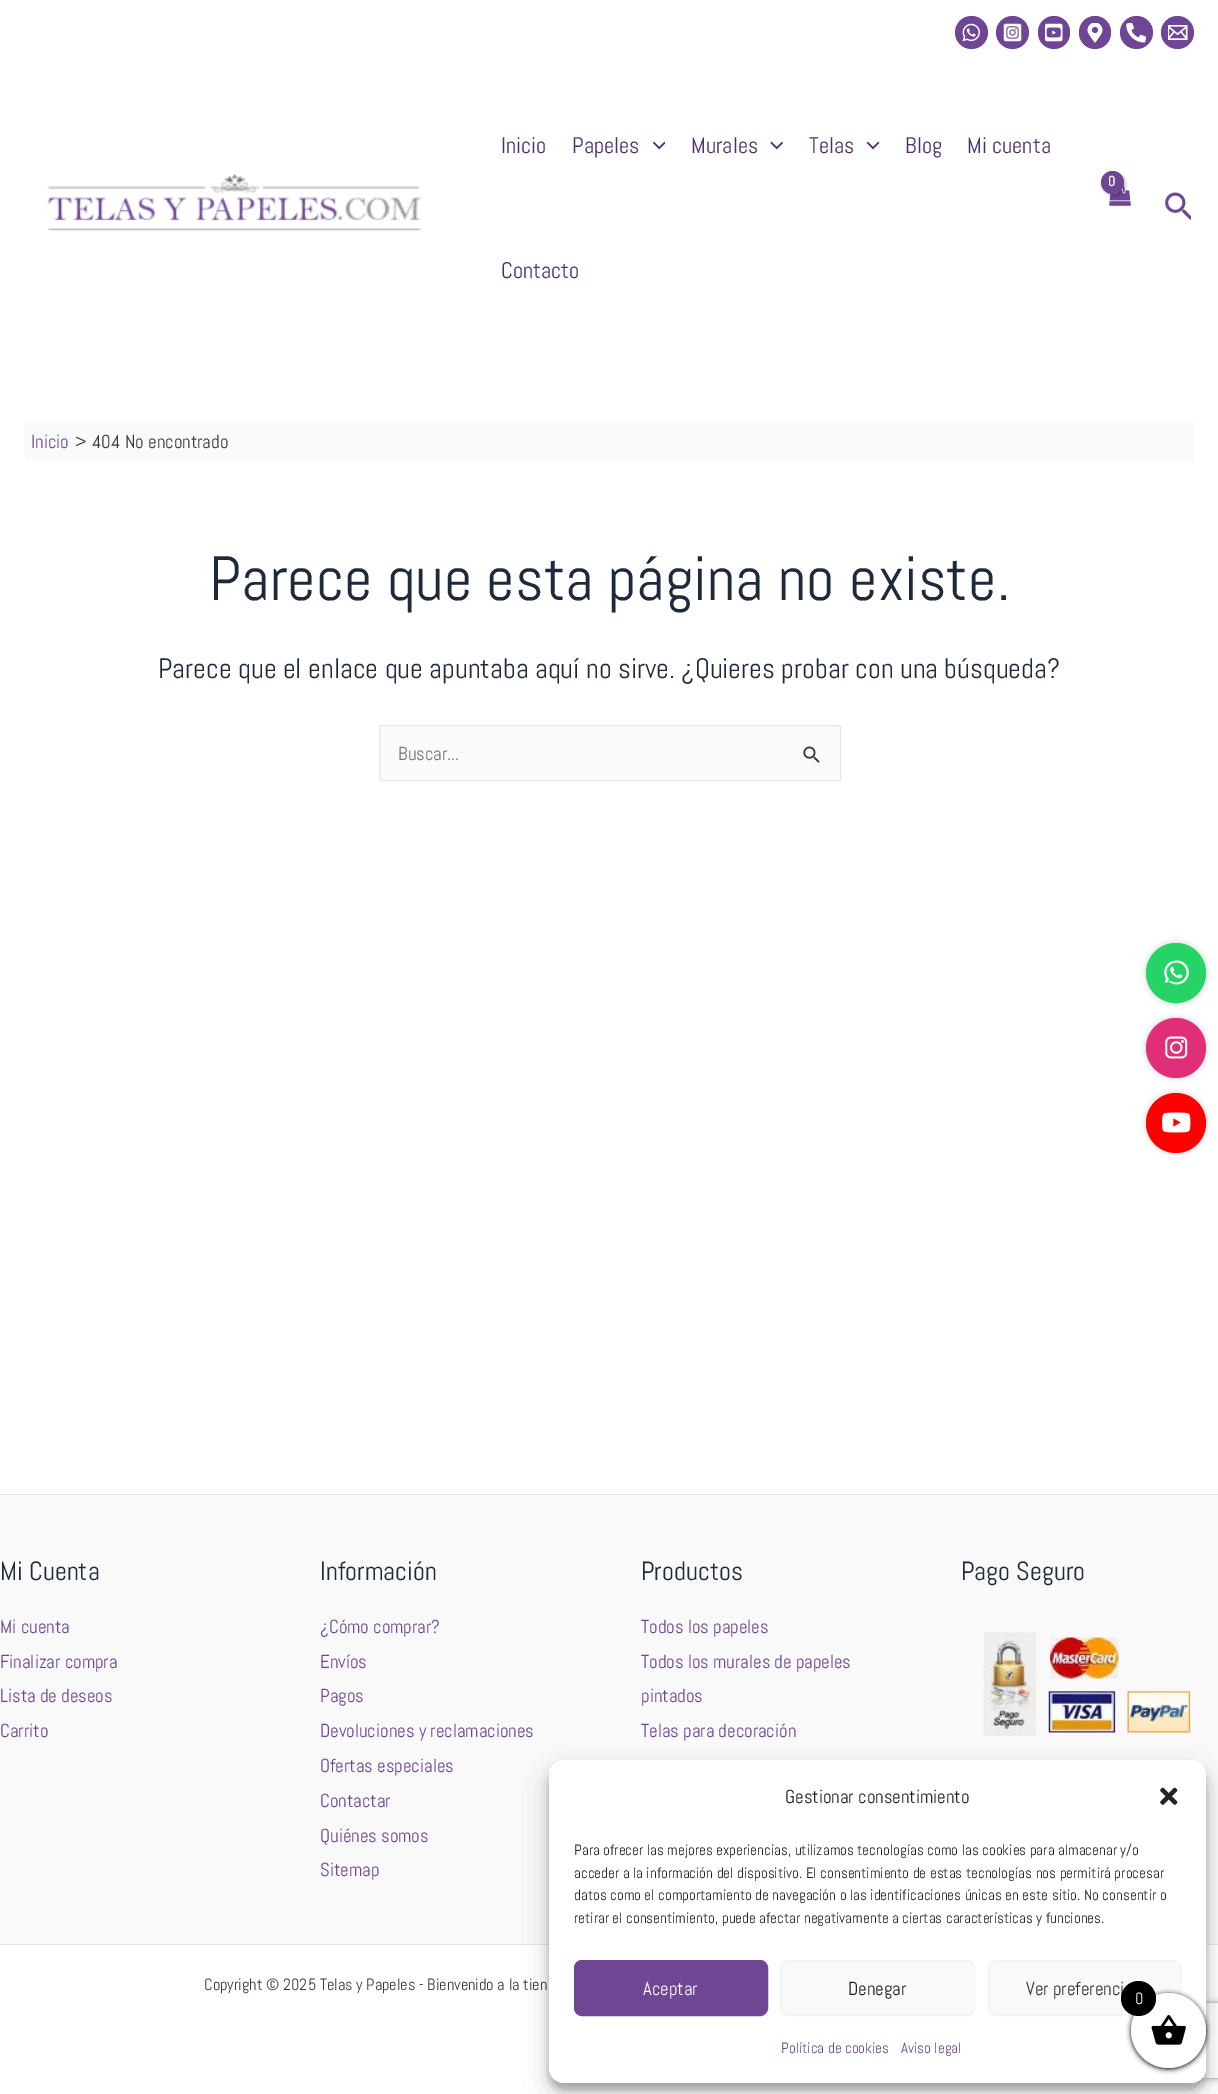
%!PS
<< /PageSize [1218 2094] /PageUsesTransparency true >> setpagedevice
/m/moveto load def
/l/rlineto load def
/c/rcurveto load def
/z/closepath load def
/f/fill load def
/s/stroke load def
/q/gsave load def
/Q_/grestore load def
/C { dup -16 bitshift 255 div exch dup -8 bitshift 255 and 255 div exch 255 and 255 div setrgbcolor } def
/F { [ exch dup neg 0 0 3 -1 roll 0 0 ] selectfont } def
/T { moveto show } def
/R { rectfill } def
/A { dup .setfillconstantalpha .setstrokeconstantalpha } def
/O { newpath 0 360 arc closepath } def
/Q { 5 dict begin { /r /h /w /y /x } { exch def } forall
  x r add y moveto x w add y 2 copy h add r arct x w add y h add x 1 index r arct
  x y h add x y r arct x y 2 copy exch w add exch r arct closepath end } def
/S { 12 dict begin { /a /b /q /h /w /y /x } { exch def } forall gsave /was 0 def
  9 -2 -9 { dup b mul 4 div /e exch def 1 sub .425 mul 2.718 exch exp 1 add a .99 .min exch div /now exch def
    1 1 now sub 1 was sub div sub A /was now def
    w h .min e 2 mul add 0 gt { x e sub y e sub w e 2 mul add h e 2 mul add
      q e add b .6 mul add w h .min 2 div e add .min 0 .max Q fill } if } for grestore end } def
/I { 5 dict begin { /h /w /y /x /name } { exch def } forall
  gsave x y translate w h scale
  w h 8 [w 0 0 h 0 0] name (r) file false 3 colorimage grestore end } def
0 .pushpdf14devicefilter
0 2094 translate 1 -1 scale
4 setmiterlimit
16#FFFFFF C
0 0 1218 2094 R
16#6E4693 C
971.5 32.5 16.5 O f
(1.rgb) 962 23 18 19 I
1012.5 32.5 16.5 O f
(2.rgb) 1003 23 19 19 I
1038 16 32 33 16 Q f
(3.rgb) 1045 23 18 19 I
1079 16 32 33 16 Q f
(4.rgb) 1087 23 16 20 I
1136.5 32.5 16.5 O f
(5.rgb) 1126 23 20 20 I
1177.5 32.5 16.5 O f
(6.rgb) 1168 25 20 15 I
(7.rgb) 47 173 375 58 I
/Abel-Regular 22.5 F
16#4E2E6D C
(Inicio) 501 153 T
(Papeles) 572 153 T
(8.rgb) 653 141 12 9 I
(Murales) 691 153 T
(9.rgb) 770 141 14 9 I
(Telas) 809 153 T
(10.rgb) 866 141 14 9 I
(Blog) 905 153 T
(Mi cuenta) 967 153 T
(Contacto) 501 278 T
(11.rgb) 1109 185 22 21 I
16#000000 C
1103 173 22 22 11 2 .3 S
16#6E4693 C
1112.5 182.5 11.5 O f
/Abel-Bold 14 F
16#FFFFFF C
1108 186 m -1 0 (0) ashow
(12.rgb) 1165 192 26 28 I
16#F9FAFB C
25 421 1169 39 R
/Abel-Regular 18.75 F
16#6E4693 C
(Inicio) 31 448 T
16#3A3A3A C
(>) 75 448 T
(404 No encontrado) 92 448 T
/Abel-Regular 62.5 F
16#1E293B C
(Parece que esta página no existe.) 209 600 T
/Abel-Regular 28.1 F
(Parece que el enlace que apuntaba aquí no sirve. ¿Quieres probar con una búsqueda?) 158 678 T
16#FAFAFA C
379.5 725.5 461 55 2 Q q f Q_
16#E2E8F0 C
s
/Abel-Regular 18.75 F
16#757575 C
(Buscar...) 398 760 T
(13.rgb) 803 746 17 17 I
16#F9F9F9 C
0 1495 1218 449 R
16#E2E8F0 C
0 1494 1218 1 R
/Abel-Regular 26.25 F
16#1E293B C
(Mi Cuenta) 0 1580 T
/Abel-Regular 18.75 F
16#6E4693 C
(Mi cuenta) 0 1633 T
(Finalizar compra) 0 1668 T
(Lista de deseos) 0 1702 T
(Carrito) 0 1737 T
/Abel-Regular 26.25 F
16#1E293B C
(Información) 320 1580 T
/Abel-Regular 18.75 F
16#6E4693 C
(¿Cómo comprar?) 320 1633 T
(Envíos) 320 1668 T
(Pagos) 320 1702 T
(Devoluciones y reclamaciones) 320 1737 T
(Ofertas especiales) 320 1772 T
(Contactar) 320 1807 T
(Quiénes somos) 320 1842 T
(Sitemap) 320 1876 T
/Abel-Regular 26.25 F
16#1E293B C
(Productos) 641 1580 T
/Abel-Regular 18.75 F
16#6E4693 C
(Todos los papeles) 641 1633 T
(Todos los murales de papeles) 641 1668 T
(pintados) 641 1702 T
(Telas para decoración) 641 1737 T
/Abel-Regular 26.25 F
16#1E293B C
(Pago Seguro) 961 1580 T
(14.rgb) 983 1632 208 105 I
16#E2E8F0 C
0 1944 1218 1 R
/Abel-Regular 16.25 F
16#3A3A3A C
(Copyright © 2025 Telas y Papeles - Bienvenido a la tien) 204 1990 T
16#000000 C
1146 943 60 60 30 3 .2 S
16#25D366 C
1176 973 30 O f
(15.rgb) 1164 960 25 25 I
16#000000 C
1146 1018 60 60 30 3 .2 S
16#E02F78 C
1176 1048 30 O f
(16.rgb) 1165 1036 23 23 I
16#000000 C
1146 1093 60 60 30 3 .2 S
16#FF0000 C
1176 1123 30 O f
(17.rgb) 1162 1112 29 21 I
16#000000 C
549 1768 657 322 15 4 .23 S
549 1773 657 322 15 12.5 .19 S
q
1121 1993 m 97 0 l 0 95 l -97 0 l z 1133.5 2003 m 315 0 l 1.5 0 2.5 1 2.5 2.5 c 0 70 l 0 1.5 -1 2.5 -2.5 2.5 c -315 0 l -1.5 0 -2.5 -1 -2.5 -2.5 c 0 -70 l 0 -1.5 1 -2.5 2.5 -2.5 c z eoclip newpath
16#808080 C
1131 2003 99 75 2.5 3 1 S
Q_
16#FFFFFF C
549 1760 657 323 15 Q f
/Abel-Regular 18.75 F
16#222222 C
(Gestionar consentimiento) 785 1803 T
(18.rgb) 1160 1787 18 18 I
/Abel-Regular 15 F
(Para ofrecer las mejores experiencias, utilizamos tecnologías como las cookies para almacenar y/o) 574 1855 T
(acceder a la información del dispositivo. El consentimiento de estas tecnologías nos permitirá procesar) 574 1878 T
(datos como el comportamiento de navegación o las identificaciones únicas en este sitio. No consentir o) 574 1900 T
(retirar el consentimiento, puede afectar negativamente a ciertas características y funciones.) 574 1923 T
16#6E4693 C
574.5 1960.5 193 55 7.5 Q q f Q_
s
/Abel-Regular 18.75 F
16#FFFFFF C
(Aceptar) 643 1995 T
16#F9F9F9 C
780.5 1960.5 194 55 7.5 Q q f Q_
16#F2F2F2 C
s
16#222222 C
(Denegar) 848 1995 T
16#F9F9F9 C
988.5 1960.5 192 55 7.5 Q q f Q_
16#F2F2F2 C
s
16#333333 C
(Ver preferenci) 1026 1995 T
/Abel-Regular 15 F
16#6E4693 C
(Política de cookies) 781 2053 T
(Aviso legal) 901 2053 T
16#000000 C
1131 1994 75 75 37.5 2.5 1 S
16#FFFFFF C
1168.5 2030.5 37.5 O f
(19.rgb) 1151 2015 35 30 I
16#000000 C
1138.5 1998.5 17.5 O f
/Abel-Regular 16.25 F
16#FFFFFF C
(0) 1135 2004 T
.poppdf14devicefilter showpage
